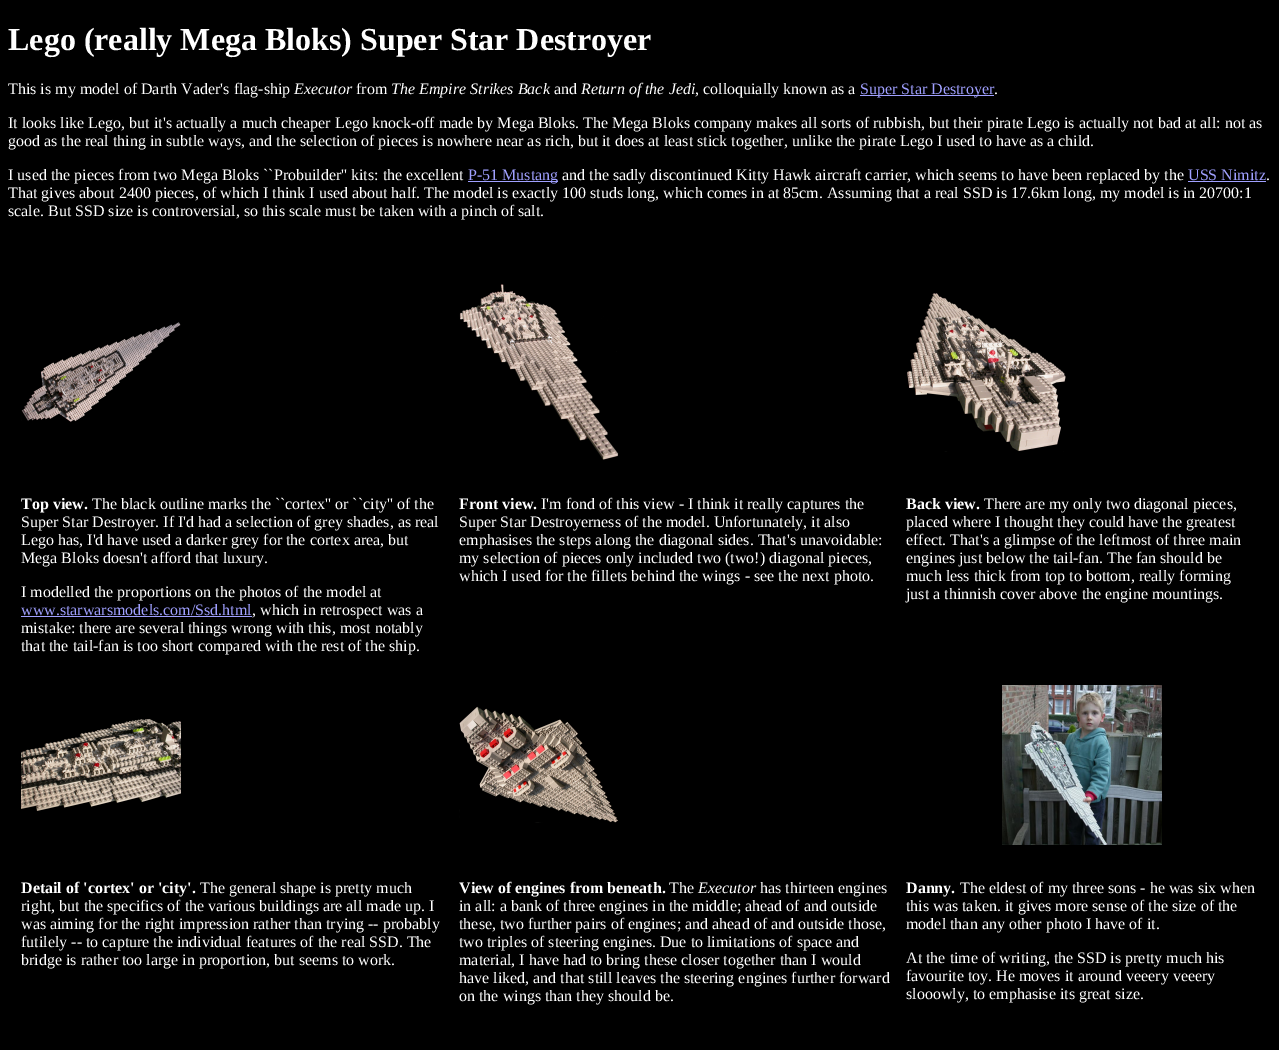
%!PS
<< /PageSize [1279 1050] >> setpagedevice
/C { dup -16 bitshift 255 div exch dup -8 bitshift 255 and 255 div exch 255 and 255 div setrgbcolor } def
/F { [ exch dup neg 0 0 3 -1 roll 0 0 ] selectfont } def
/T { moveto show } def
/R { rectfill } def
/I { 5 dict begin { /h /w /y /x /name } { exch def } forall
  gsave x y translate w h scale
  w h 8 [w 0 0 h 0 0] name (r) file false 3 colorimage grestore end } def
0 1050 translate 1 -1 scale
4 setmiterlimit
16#000000 C
0 0 1279 1050 R
/LiberationSerif-Bold 32 F
16#FFFFFF C
(Lego \(really Mega Bloks\) Super Star Destroyer) 8 50 T
/LiberationSerif-Regular 16 F
(This is my model of Darth Vader's flag-ship) 8 94 T
/LiberationSerif-Italic 16 F
(Executor) 294 94 T
/LiberationSerif-Regular 16 F
(from) 356 94 T
/LiberationSerif-Italic 16 F
(The Empire Strikes Back) 391 94 T
/LiberationSerif-Regular 16 F
(and) 554 94 T
/LiberationSerif-Italic 16 F
(Return of the Jedi) 581 94 T
/LiberationSerif-Regular 16 F
(, colloquially known as a) 695 94 T
16#A0A0FF C
860 95 134 1 R
(Super Star Destroyer) 860 94 T
16#FFFFFF C
(.) 994 94 T
(It looks like Lego, but it's actually a much cheaper Lego knock-off made by Mega Bloks. The Mega Bloks company makes all sorts of rubbish, but their pirate Lego is actually not bad at all: not as) 8 128 T
(good as the real thing in subtle ways, and the selection of pieces is nowhere near as rich, but it does at least stick together, unlike the pirate Lego I used to have as a child.) 8 146 T
(I used the pieces from two Mega Bloks ``Probuilder'' kits: the excellent) 8 180 T
16#A0A0FF C
468 181 90 1 R
(P-51 Mustang) 468 180 T
16#FFFFFF C
(and the sadly discontinued Kitty Hawk aircraft carrier, which seems to have been replaced by the) 562 180 T
16#A0A0FF C
(USS Nimitz) 1188 180 T
1188 181 78 1 R
16#FFFFFF C
(.) 1266 180 T
(That gives about 2400 pieces, of which I think I used about half. The model is exactly 100 studs long, which comes in at 85cm. Assuming that a real SSD is 17.6km long, my model is in 20700:1) 8 198 T
(scale. But SSD size is controversial, so this scale must be taken with a pinch of salt.) 8 216 T
(1.rgb) 21 322 160 100 I
(2.rgb) 459 284 160 176 I
(3.rgb) 907 293 159 159 I
/LiberationSerif-Bold 16 F
(Top view.) 21 509 T
/LiberationSerif-Regular 16 F
(The black outline marks the ``cortex'' or ``city'' of the) 92 509 T
(Super Star Destroyer. If I'd had a selection of grey shades, as real) 21 527 T
(Lego has, I'd have used a darker grey for the cortex area, but) 21 545 T
(Mega Bloks doesn't afford that luxury.) 21 563 T
(I modelled the proportions on the photos of the model at) 21 597 T
16#A0A0FF C
(www.starwarsmodels.com/Ssd.html) 21 615 T
21 616 231 1 R
16#FFFFFF C
(, which in retrospect was a) 252 615 T
(mistake: there are several things wrong with this, most notably) 21 633 T
(that the tail-fan is too short compared with the rest of the ship.) 21 651 T
/LiberationSerif-Bold 16 F
(Front view.) 459 509 T
/LiberationSerif-Regular 16 F
(I'm fond of this view - I think it really captures the) 541 509 T
(Super Star Destroyerness of the model. Unfortunately, it also) 459 527 T
(emphasises the steps along the diagonal sides. That's unavoidable:) 459 545 T
(my selection of pieces only included two \(two!\) diagonal pieces,) 459 563 T
(which I used for the fillets behind the wings - see the next photo.) 459 581 T
/LiberationSerif-Bold 16 F
(Back view.) 906 509 T
/LiberationSerif-Regular 16 F
(There are my only two diagonal pieces,) 984 509 T
(placed where I thought they could have the greatest) 906 527 T
(effect. That's a glimpse of the leftmost of three main) 906 545 T
(engines just below the tail-fan. The fan should be) 906 563 T
(much less thick from top to bottom, really forming) 906 581 T
(just a thinnish cover above the engine mountings.) 906 599 T
(4.rgb) 21 718 160 93 I
(5.rgb) 459 706 159 117 I
(6.rgb) 1002 685 160 160 I
/LiberationSerif-Bold 16 F
(Detail of 'cortex' or 'city'.) 21 893 T
/LiberationSerif-Regular 16 F
(The general shape is pretty much) 200 893 T
(right, but the specifics of the various buildings are all made up. I) 21 911 T
(was aiming for the right impression rather than trying -- probably) 21 929 T
(futilely -- to capture the individual features of the real SSD. The) 21 947 T
(bridge is rather too large in proportion, but seems to work.) 21 965 T
/LiberationSerif-Bold 16 F
(View of engines from beneath.) 459 893 T
/LiberationSerif-Regular 16 F
(The) 669 893 T
/LiberationSerif-Italic 16 F
(Executor) 698 893 T
/LiberationSerif-Regular 16 F
(has thirteen engines) 760 893 T
(in all: a bank of three engines in the middle; ahead of and outside) 459 911 T
(these, two further pairs of engines; and ahead of and outside those,) 459 929 T
(two triples of steering engines. Due to limitations of space and) 459 947 T
(material, I have had to bring these closer together than I would) 459 965 T
(have liked, and that still leaves the steering engines further forward) 459 983 T
(on the wings than they should be.) 459 1001 T
/LiberationSerif-Bold 16 F
(Danny.) 906 893 T
/LiberationSerif-Regular 16 F
(The eldest of my three sons - he was six when) 960 893 T
(this was taken. it gives more sense of the size of the) 906 911 T
(model than any other photo I have of it.) 906 929 T
(At the time of writing, the SSD is pretty much his) 906 963 T
(favourite toy. He moves it around veeery veeery) 906 981 T
(slooowly, to emphasise its great size.) 906 999 T
showpage
